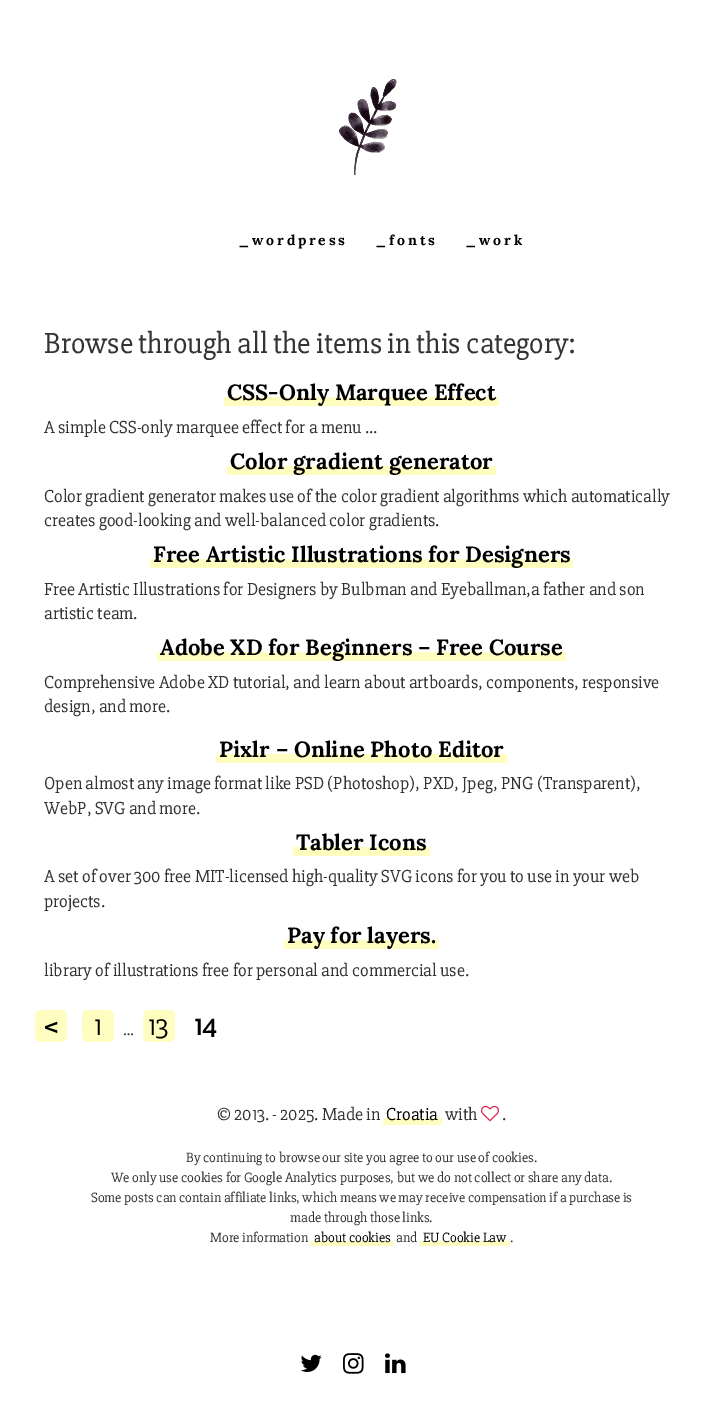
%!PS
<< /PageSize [723 1424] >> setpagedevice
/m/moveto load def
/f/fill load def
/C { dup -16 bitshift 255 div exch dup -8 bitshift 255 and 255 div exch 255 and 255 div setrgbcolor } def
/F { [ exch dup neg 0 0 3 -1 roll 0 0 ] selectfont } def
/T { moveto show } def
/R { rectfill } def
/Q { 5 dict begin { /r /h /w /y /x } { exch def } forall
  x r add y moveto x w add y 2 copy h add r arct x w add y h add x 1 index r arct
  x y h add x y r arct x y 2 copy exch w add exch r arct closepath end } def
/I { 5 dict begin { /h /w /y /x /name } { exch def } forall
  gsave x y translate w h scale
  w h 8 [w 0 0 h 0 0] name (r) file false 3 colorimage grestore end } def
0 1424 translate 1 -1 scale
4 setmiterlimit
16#FFFFFF C
0 0 723 1424 R
(1.rgb) 339 79 58 96 I
/Lora-Bold 14 F
16#000000 C
238 245 m 2.75 0 (_wordpress) ashow
375 245 m 2.75 0 (_fonts) ashow
465 245 m 2.75 0 (_work) ashow
/Slabo27px-Regular 30 F
16#333333 C
(Browse through all the items in this category:) 44 353 T
16#FFFDC0 C
224 397 275 9 R
/Lora-Bold 22 F
16#000000 C
(CSS-Only Marquee Effect) 227 400 T
/Slabo27px-Regular 18 F
16#333333 C
(A simple CSS-only marquee effect for a menu …) 44 433 T
16#FFFDC0 C
227 466 269 9 R
/Lora-Bold 22 F
16#000000 C
(Color gradient generator) 230 469 T
/Slabo27px-Regular 18 F
16#333333 C
(Color gradient generator makes use of the color gradient algorithms which automatically) 44 502 T
(creates good-looking and well-balanced color gradients.) 44 526 T
16#FFFDC0 C
150 559 423 9 R
/Lora-Bold 22 F
16#000000 C
(Free Artistic Illustrations for Designers) 153 562 T
/Slabo27px-Regular 18 F
16#333333 C
(Free Artistic Illustrations for Designers by Bulbman and Eyeballman,a father and son) 44 595 T
(artistic team.) 44 619 T
16#FFFDC0 C
157 652 409 9 R
/Lora-Bold 22 F
16#000000 C
(Adobe XD for Beginners – Free Course) 160 655 T
/Slabo27px-Regular 18 F
16#333333 C
(Comprehensive Adobe XD tutorial, and learn about artboards, components, responsive) 44 688 T
(design, and more.) 44 712 T
16#FFFDC0 C
216 754 291 9 R
/Lora-Bold 22 F
16#000000 C
(Pixlr – Online Photo Editor) 219 757 T
/Slabo27px-Regular 18 F
16#333333 C
(Open almost any image format like PSD \(Photoshop\), PXD, Jpeg, PNG \(Transparent\),) 44 789 T
(WebP, SVG and more.) 44 814 T
16#FFFDC0 C
293 847 137 9 R
/Lora-Bold 22 F
16#000000 C
(Tabler Icons) 296 850 T
/Slabo27px-Regular 18 F
16#333333 C
(A set of over 300 free MIT-licensed high-quality SVG icons for you to use in your web) 44 882 T
(projects.) 44 907 T
16#FFFDC0 C
284 940 155 9 R
/Lora-Bold 22 F
16#000000 C
(Pay for layers.) 287 943 T
/Slabo27px-Regular 18 F
16#333333 C
(library of illustrations free for personal and commercial use.) 44 976 T
16#FFFDC0 C
35 1010 32 32 6 Q f
/Slabo27px-Bold 28 F
16#000000 C
(<) 44 1035 T
16#FFFDC0 C
82 1010 32 32 6 Q f
/Slabo27px-Regular 28 F
16#000000 C
(1) 94 1035 T
16#FFFDC0 C
143 1010 32 32 6 Q f
16#000000 C
(13) 148 1035 T
/Slabo27px-Bold 28 F
(14) 194 1035 T
/Slabo27px-Regular 16 F
16#333333 C
(…) 123 1035 T
/Slabo27px-Regular 18 F
(© 2013. - 2025. Made in) 217 1120 T
16#FFFDC0 C
383 1118 59 7 R
16#000000 C
(Croatia) 386 1120 T
16#333333 C
(with) 445 1120 T
(2.rgb) 481 1105 18 17 I
(.) 502 1120 T
/Slabo27px-Regular 14 F
(By continuing to browse our site you agree to our use of cookies.) 186 1162 T
(We only use cookies for Google Analytics purposes, but we do not collect or share any data.) 111 1182 T
(Some posts can contain affiliate links, which means we may receive compensation if a purchase is) 91 1202 T
(made through those links.) 290 1222 T
(More information) 210 1242 T
16#FFFDC0 C
311 1241 83 5 R
16#000000 C
(about cookies) 314 1242 T
16#333333 C
(and) 396 1242 T
16#FFFDC0 C
420 1241 90 5 R
16#000000 C
(EU Cookie Law) 423 1242 T
16#333333 C
(.) 510 1242 T
(3.rgb) 300 1354 22 18 I
(4.rgb) 343 1353 21 21 I
(5.rgb) 385 1353 21 21 I
showpage
